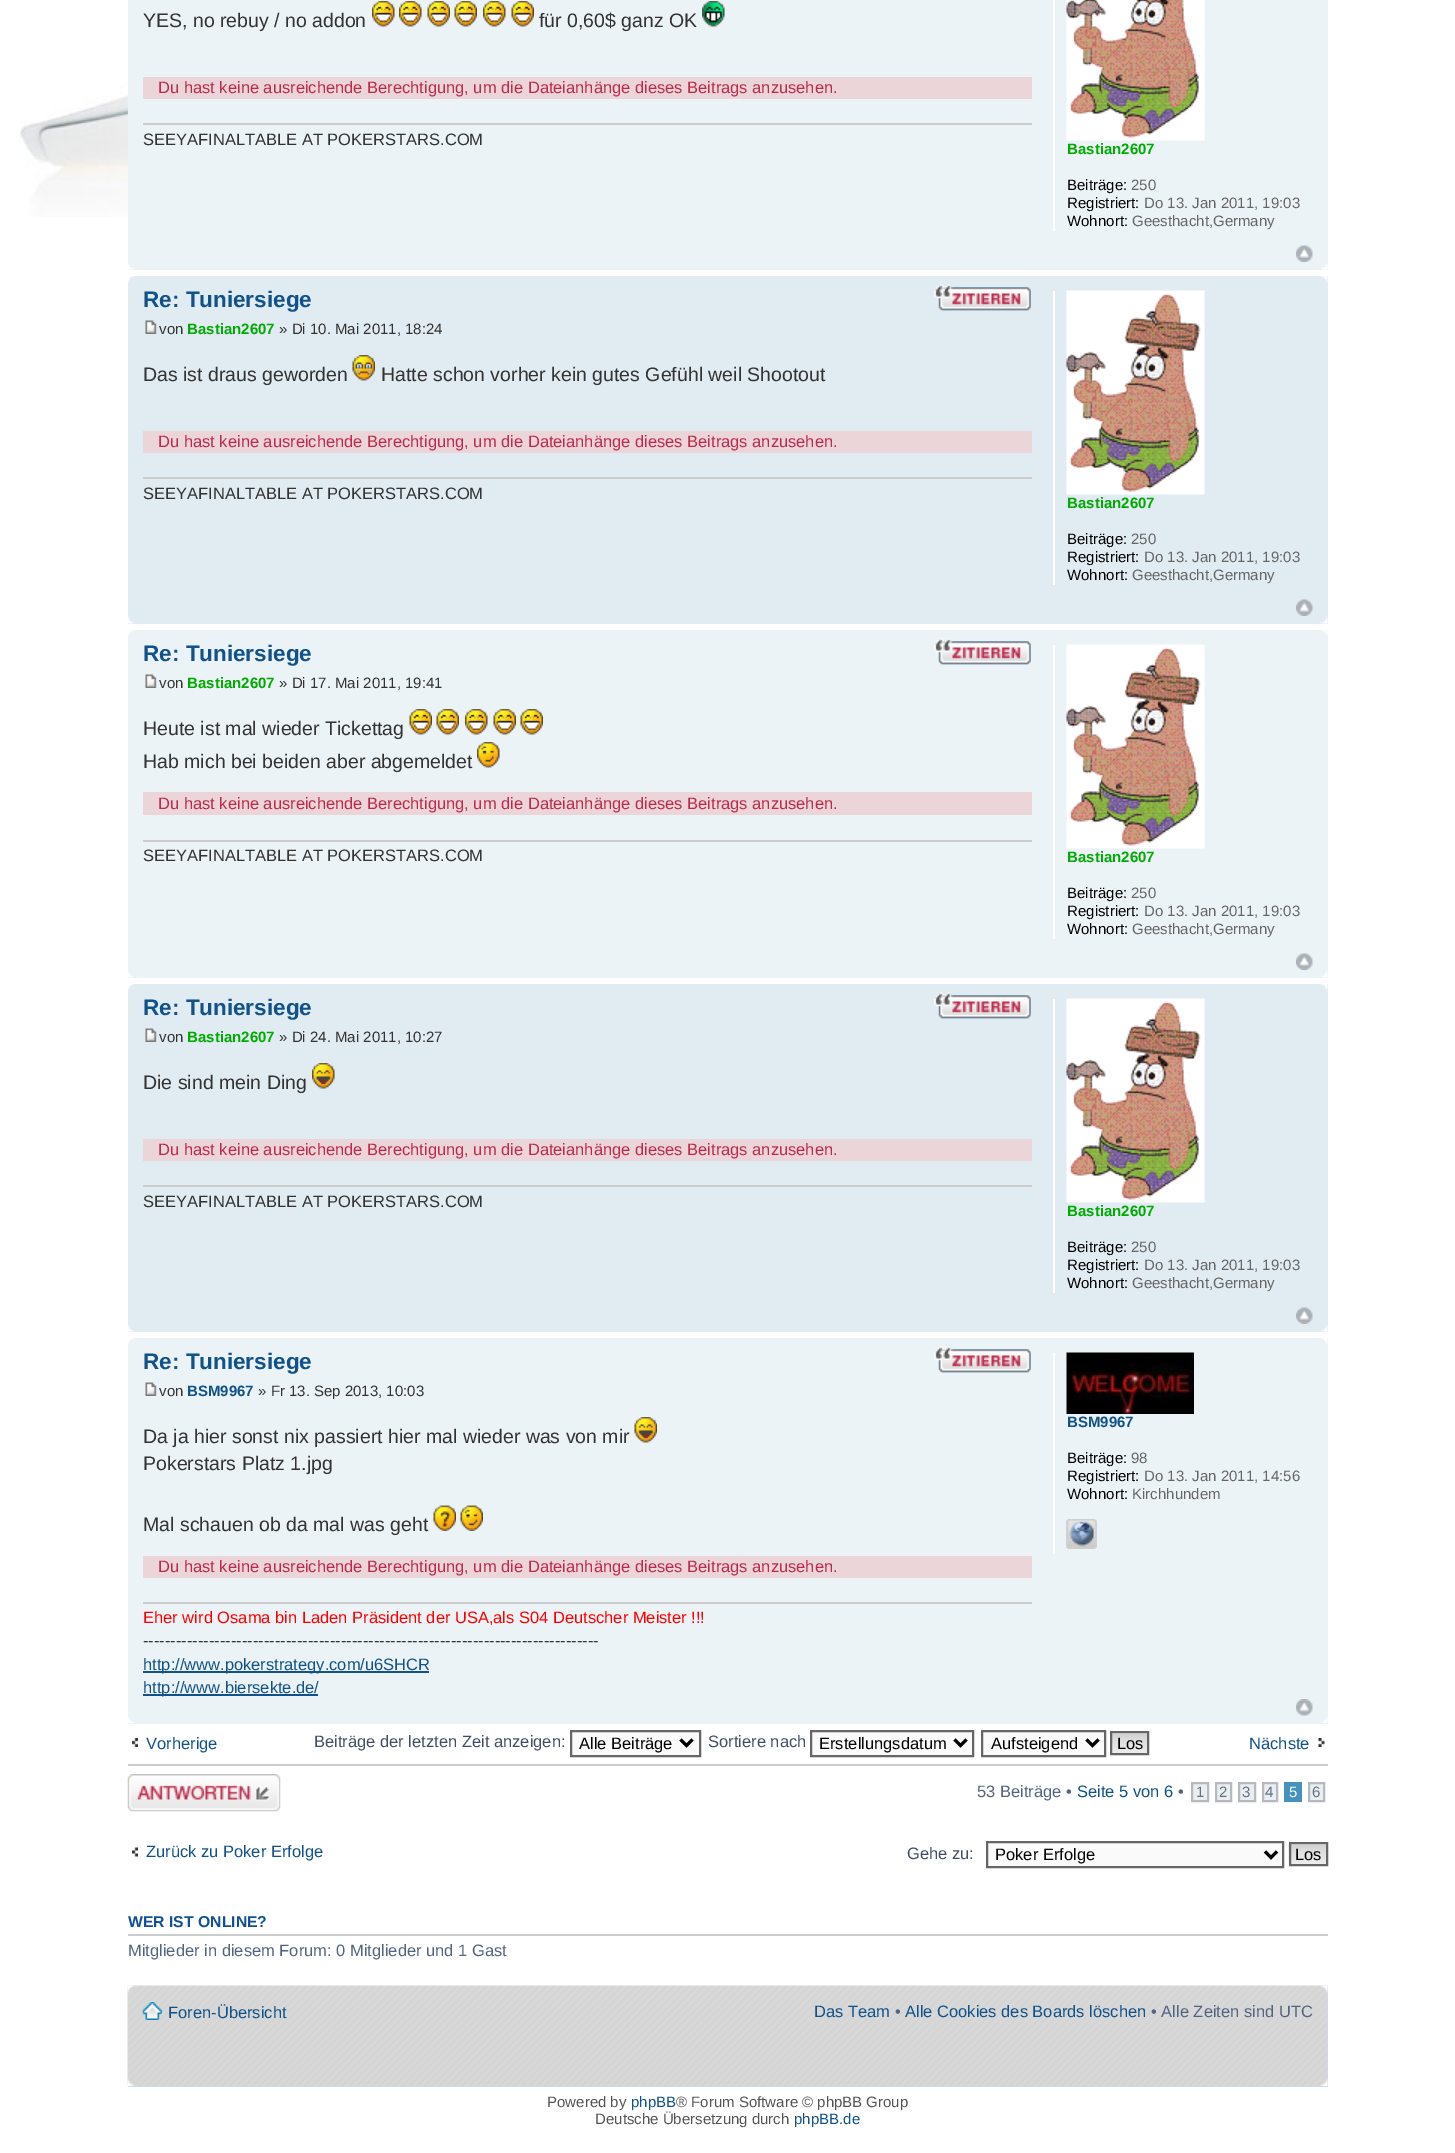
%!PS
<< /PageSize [1455 2153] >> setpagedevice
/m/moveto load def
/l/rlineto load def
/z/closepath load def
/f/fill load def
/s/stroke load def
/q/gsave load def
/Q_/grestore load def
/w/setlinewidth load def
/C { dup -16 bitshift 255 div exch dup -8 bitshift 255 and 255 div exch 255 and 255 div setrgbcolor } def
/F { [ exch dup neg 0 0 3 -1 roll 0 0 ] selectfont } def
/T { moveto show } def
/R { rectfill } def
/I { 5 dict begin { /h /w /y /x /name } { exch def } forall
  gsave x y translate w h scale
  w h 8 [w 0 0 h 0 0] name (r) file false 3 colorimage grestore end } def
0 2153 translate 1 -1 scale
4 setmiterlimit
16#FFFFFF C
0 0 1455 2153 R
(1.rgb) 19 37 109 180 I
16#ECF3F7 C
128 0 1200 270 R
/LiberationSans-Regular 19.5 F
16#333333 C
(YES, no rebuy / no addon) 143 27 T
(2.rgb) 372 1 23 26 I
(2.rgb) 399 1 23 26 I
(3.rgb) 427 1 23 26 I
(4.rgb) 454 1 23 26 I
(2.rgb) 483 1 23 26 I
(5.rgb) 511 1 23 26 I
(für 0,60$ ganz OK) 539 27 T
(6.rgb) 702 1 23 26 I
16#ECD5D8 C
143 77 889 22 R
/LiberationSans-Regular 16.5 F
16#BC2A4D C
(Du hast keine ausreichende Berechtigung, um die Dateianhänge dieses Beitrags anzusehen.) 158 93 T
16#CCCCCC C
143 123 889 2 R
16#333333 C
(SEEYAFINALTABLE AT POKERSTARS.COM) 143 145 T
16#FFFFFF C
1053 0 2 231 R
(7.rgb) 1066 0 139 141 I
/LiberationSans-Bold 15 F
16#00AA00 C
(Bastian2607) 1067 154 T
/LiberationSans-Regular 15 F
16#000000 C
(Beiträge:) 1067 190 T
16#666666 C
(250) 1131 190 T
16#000000 C
(Registriert:) 1067 208 T
16#666666 C
(Do 13. Jan 2011, 19:03) 1144 208 T
16#000000 C
(Wohnort:) 1067 226 T
16#666666 C
(Geesthacht,Germany) 1132 226 T
(8.rgb) 1296 245 17 17 I
(9.rgb) 128 263 6 7 I
(10.rgb) 1321 263 7 7 I
16#E1EBF2 C
128 276 1200 348 R
(11.rgb) 128 276 7 7 I
(12.rgb) 1320 276 8 7 I
/LiberationSans-Bold 22.5 F
16#105289 C
(Re: Tuniersiege) 143 307 T
(13.rgb) 934 284 97 27 I
(14.rgb) 934 284 97 27 I
(15.rgb) 145 320 12 14 I
/LiberationSans-Regular 15 F
16#333333 C
(von) 159 334 T
/LiberationSans-Bold 15 F
16#00AA00 C
(Bastian2607) 187 334 T
/LiberationSans-Regular 15 F
16#333333 C
(» Di 10. Mai 2011, 18:24) 279 334 T
/LiberationSans-Regular 19.5 F
(Das ist draus geworden) 143 381 T
(16.rgb) 352 355 23 26 I
(Hatte schon vorher kein gutes Gefühl weil Shootout) 381 381 T
16#ECD5D8 C
143 431 889 22 R
/LiberationSans-Regular 16.5 F
16#BC2A4D C
(Du hast keine ausreichende Berechtigung, um die Dateianhänge dieses Beitrags anzusehen.) 158 447 T
16#CCCCCC C
143 477 889 2 R
16#333333 C
(SEEYAFINALTABLE AT POKERSTARS.COM) 143 499 T
16#FFFFFF C
1053 291 2 294 R
(17.rgb) 1066 290 139 205 I
/LiberationSans-Bold 15 F
16#00AA00 C
(Bastian2607) 1067 508 T
/LiberationSans-Regular 15 F
16#000000 C
(Beiträge:) 1067 544 T
16#666666 C
(250) 1131 544 T
16#000000 C
(Registriert:) 1067 562 T
16#666666 C
(Do 13. Jan 2011, 19:03) 1144 562 T
16#000000 C
(Wohnort:) 1067 580 T
16#666666 C
(Geesthacht,Germany) 1132 580 T
(18.rgb) 1296 599 17 17 I
(19.rgb) 128 616 7 8 I
(20.rgb) 1320 616 8 8 I
16#ECF3F7 C
128 630 1200 348 R
(21.rgb) 128 630 6 6 I
(22.rgb) 1321 630 7 6 I
/LiberationSans-Bold 22.5 F
16#105289 C
(Re: Tuniersiege) 143 661 T
(23.rgb) 934 638 97 27 I
(24.rgb) 934 638 97 27 I
(25.rgb) 145 674 12 14 I
/LiberationSans-Regular 15 F
16#333333 C
(von) 159 688 T
/LiberationSans-Bold 15 F
16#00AA00 C
(Bastian2607) 187 688 T
/LiberationSans-Regular 15 F
16#333333 C
(» Di 17. Mai 2011, 19:41) 279 688 T
/LiberationSans-Regular 19.5 F
(Heute ist mal wieder Tickettag) 143 735 T
(3.rgb) 409 709 23 26 I
(3.rgb) 436 709 23 26 I
(2.rgb) 465 709 23 26 I
(4.rgb) 493 709 23 26 I
(3.rgb) 520 709 23 26 I
(Hab mich bei beiden aber abgemeldet) 143 768 T
(26.rgb) 477 742 23 26 I
16#ECD5D8 C
143 792 889 23 R
/LiberationSans-Regular 16.5 F
16#BC2A4D C
(Du hast keine ausreichende Berechtigung, um die Dateianhänge dieses Beitrags anzusehen.) 158 809 T
16#CCCCCC C
143 840 889 2 R
16#333333 C
(SEEYAFINALTABLE AT POKERSTARS.COM) 143 861 T
16#FFFFFF C
1053 645 2 294 R
(27.rgb) 1066 644 139 205 I
/LiberationSans-Bold 15 F
16#00AA00 C
(Bastian2607) 1067 862 T
/LiberationSans-Regular 15 F
16#000000 C
(Beiträge:) 1067 898 T
16#666666 C
(250) 1131 898 T
16#000000 C
(Registriert:) 1067 916 T
16#666666 C
(Do 13. Jan 2011, 19:03) 1144 916 T
16#000000 C
(Wohnort:) 1067 934 T
16#666666 C
(Geesthacht,Germany) 1132 934 T
(8.rgb) 1296 953 17 17 I
(9.rgb) 128 971 6 7 I
(10.rgb) 1321 971 7 7 I
16#E1EBF2 C
128 984 1200 348 R
(11.rgb) 128 984 7 7 I
(12.rgb) 1320 984 8 7 I
/LiberationSans-Bold 22.5 F
16#105289 C
(Re: Tuniersiege) 143 1015 T
(13.rgb) 934 992 97 27 I
(14.rgb) 934 992 97 27 I
(15.rgb) 145 1028 12 14 I
/LiberationSans-Regular 15 F
16#333333 C
(von) 159 1042 T
/LiberationSans-Bold 15 F
16#00AA00 C
(Bastian2607) 187 1042 T
/LiberationSans-Regular 15 F
16#333333 C
(» Di 24. Mai 2011, 10:27) 279 1042 T
/LiberationSans-Regular 19.5 F
(Die sind mein Ding) 143 1089 T
(28.rgb) 312 1063 23 26 I
16#ECD5D8 C
143 1139 889 22 R
/LiberationSans-Regular 16.5 F
16#BC2A4D C
(Du hast keine ausreichende Berechtigung, um die Dateianhänge dieses Beitrags anzusehen.) 158 1155 T
16#CCCCCC C
143 1185 889 2 R
16#333333 C
(SEEYAFINALTABLE AT POKERSTARS.COM) 143 1207 T
16#FFFFFF C
1053 999 2 294 R
(17.rgb) 1066 998 139 205 I
/LiberationSans-Bold 15 F
16#00AA00 C
(Bastian2607) 1067 1216 T
/LiberationSans-Regular 15 F
16#000000 C
(Beiträge:) 1067 1252 T
16#666666 C
(250) 1131 1252 T
16#000000 C
(Registriert:) 1067 1270 T
16#666666 C
(Do 13. Jan 2011, 19:03) 1144 1270 T
16#000000 C
(Wohnort:) 1067 1288 T
16#666666 C
(Geesthacht,Germany) 1132 1288 T
(18.rgb) 1296 1307 17 17 I
(19.rgb) 128 1324 7 8 I
(20.rgb) 1320 1324 8 8 I
16#ECF3F7 C
128 1338 1200 386 R
(21.rgb) 128 1338 6 6 I
(22.rgb) 1321 1338 7 6 I
/LiberationSans-Bold 22.5 F
16#105289 C
(Re: Tuniersiege) 143 1369 T
(23.rgb) 934 1346 97 27 I
(24.rgb) 934 1346 97 27 I
(25.rgb) 145 1382 12 14 I
/LiberationSans-Regular 15 F
16#333333 C
(von) 159 1396 T
/LiberationSans-Bold 15 F
16#105289 C
(BSM9967) 187 1396 T
/LiberationSans-Regular 15 F
16#333333 C
(» Fr 13. Sep 2013, 10:03) 258 1396 T
/LiberationSans-Regular 19.5 F
(Da ja hier sonst nix passiert hier mal wieder was von mir) 143 1443 T
(29.rgb) 634 1417 23 26 I
(Pokerstars Platz 1.jpg) 143 1470 T
(Mal schauen ob da mal was geht) 143 1531 T
(30.rgb) 433 1505 23 26 I
(31.rgb) 460 1505 23 26 I
16#ECD5D8 C
143 1556 889 22 R
/LiberationSans-Regular 16.5 F
16#BC2A4D C
(Du hast keine ausreichende Berechtigung, um die Dateianhänge dieses Beitrags anzusehen.) 158 1572 T
16#CCCCCC C
143 1602 889 2 R
16#FF0000 C
(Eher wird Osama bin Laden Präsident der USA,als S04 Deutscher Meister !!!) 143 1623 T
16#333333 C
(-----------------------------------------------------------------------------------) 143 1646 T
16#105289 C
143 1671 286 2 R
(http://www.pokerstrategy.com/u6SHCR) 143 1670 T
143 1694 175 2 R
(http://www.biersekte.de/) 143 1693 T
16#FFFFFF C
1053 1353 2 201 R
(32.rgb) 1066 1352 128 62 I
/LiberationSans-Bold 15 F
16#105289 C
(BSM9967) 1067 1427 T
/LiberationSans-Regular 15 F
16#000000 C
(Beiträge:) 1067 1463 T
16#666666 C
(98) 1131 1463 T
16#000000 C
(Registriert:) 1067 1481 T
16#666666 C
(Do 13. Jan 2011, 14:56) 1144 1481 T
16#000000 C
(Wohnort:) 1067 1499 T
16#666666 C
(Kirchhundem) 1132 1499 T
(33.rgb) 1066 1519 31 30 I
(34.rgb) 1066 1519 31 30 I
(35.rgb) 1296 1699 17 17 I
(36.rgb) 128 1716 7 7 I
(37.rgb) 1321 1716 7 7 I
(38.rgb) 132 1738 6 9 I
/LiberationSans-Regular 16.5 F
16#105289 C
(Vorherige) 146 1749 T
16#425067 C
(Beiträge der letzten Zeit anzeigen:) 314 1747 T
16#FAFAFA C
571 1731 m 129 0 l 0 25 l -129 0 l z q f Q_
16#666666 C
2 w
s
16#000000 C
3 w
680.5 1739.5 m 6 6 l 6 -6 l s
(Alle Beiträge) 579 1749 T
16#425067 C
(Sortiere nach) 708 1747 T
16#FAFAFA C
811 1731 m 162 0 l 0 25 l -162 0 l z q f Q_
16#666666 C
2 w
s
16#000000 C
3 w
954.5 1739.5 m 6 6 l 6 -6 l s
(Erstellungsdatum) 819 1749 T
16#FAFAFA C
982 1731 m 123 0 l 0 25 l -123 0 l z q f Q_
16#666666 C
2 w
s
16#000000 C
3 w
1086.5 1739.5 m 6 6 l 6 -6 l s
(Aufsteigend) 991 1749 T
(39.rgb) 1112 1733 35 20 I
16#666666 C
2 w
1111 1732 37 22 rectstroke
16#000000 C
(Los) 1117 1749 T
(40.rgb) 1318 1738 7 9 I
16#105289 C
(Nächste) 1249 1749 T
16#CCCCCC C
128 1764 1200 2 R
(41.rgb) 127 1774 154 38 I
16#536482 C
(53 Beiträge •) 977 1797 T
16#105289 C
(Seite 5 von 6) 1077 1797 T
16#536482 C
(•) 1178 1797 T
16#ECEDEE C
1192 1783 m 16 0 l 0 18 l -16 0 l z q f Q_
16#B4BAC0 C
s
/LiberationSans-Regular 15 F
16#5C758C C
(1) 1196 1797 T
16#ECEDEE C
1216 1783 m 15 0 l 0 18 l -15 0 l z q f Q_
16#B4BAC0 C
s
16#5C758C C
(2) 1219 1797 T
16#ECEDEE C
1239 1783 m 16 0 l 0 18 l -16 0 l z q f Q_
16#B4BAC0 C
s
16#5C758C C
(3) 1242 1797 T
16#ECEDEE C
1263 1783 m 14 0 l 0 18 l -14 0 l z q f Q_
16#B4BAC0 C
s
16#5C758C C
(4) 1265 1797 T
16#4692BF C
1284 1782 18 20 R
16#FFFFFF C
(5) 1289 1797 T
16#ECEDEE C
1309 1783 m 15 0 l 0 18 l -15 0 l z q f Q_
16#B4BAC0 C
s
16#5C758C C
(6) 1312 1797 T
(42.rgb) 132 1847 6 10 I
/LiberationSans-Regular 16.5 F
16#105289 C
(Zurück zu Poker Erfolge) 146 1857 T
16#425067 C
(Gehe zu:) 907 1859 T
16#FAFAFA C
987 1842 m 296 0 l 0 25 l -296 0 l z q f Q_
16#666666 C
s
16#000000 C
3 w
1265 1851.5 m 6 6 l 6 -6 l s
(Poker Erfolge) 995 1860 T
(43.rgb) 1288 1843 38 23 I
16#666666 C
2 w
1290 1843 37 22 rectstroke
16#000000 C
(Los) 1295 1860 T
16#CCCCCC C
128 1934 1200 2 R
/LiberationSans-Bold 15.75 F
16#115098 C
(WER IST ONLINE?) 128 1927 T
/LiberationSans-Regular 16.5 F
16#536482 C
(Mitglieder in diesem Forum: 0 Mitglieder und 1 Gast) 128 1956 T
16#CADCEB C
128 1986 1200 101 R
(44.rgb) 127 1985 1201 101 I
(45.rgb) 127 1985 8 8 I
(46.rgb) 1320 1985 8 8 I
(47.rgb) 142 2002 20 18 I
16#105289 C
(Foren-Übersicht) 168 2018 T
(Das Team) 814 2017 T
16#536482 C
(•) 895 2017 T
16#105289 C
(Alle Cookies des Boards löschen) 905 2017 T
16#536482 C
(• Alle Zeiten sind UTC) 1151 2017 T
(48.rgb) 127 2079 8 7 I
(49.rgb) 1320 2079 8 7 I
/LiberationSans-Regular 15 F
16#555555 C
(Powered by) 547 2107 T
16#105289 C
(phpBB) 631 2107 T
16#555555 C
(® Forum Software © phpBB Group) 676 2107 T
(Deutsche Übersetzung durch) 595 2124 T
16#105289 C
(phpBB.de) 794 2124 T
showpage
